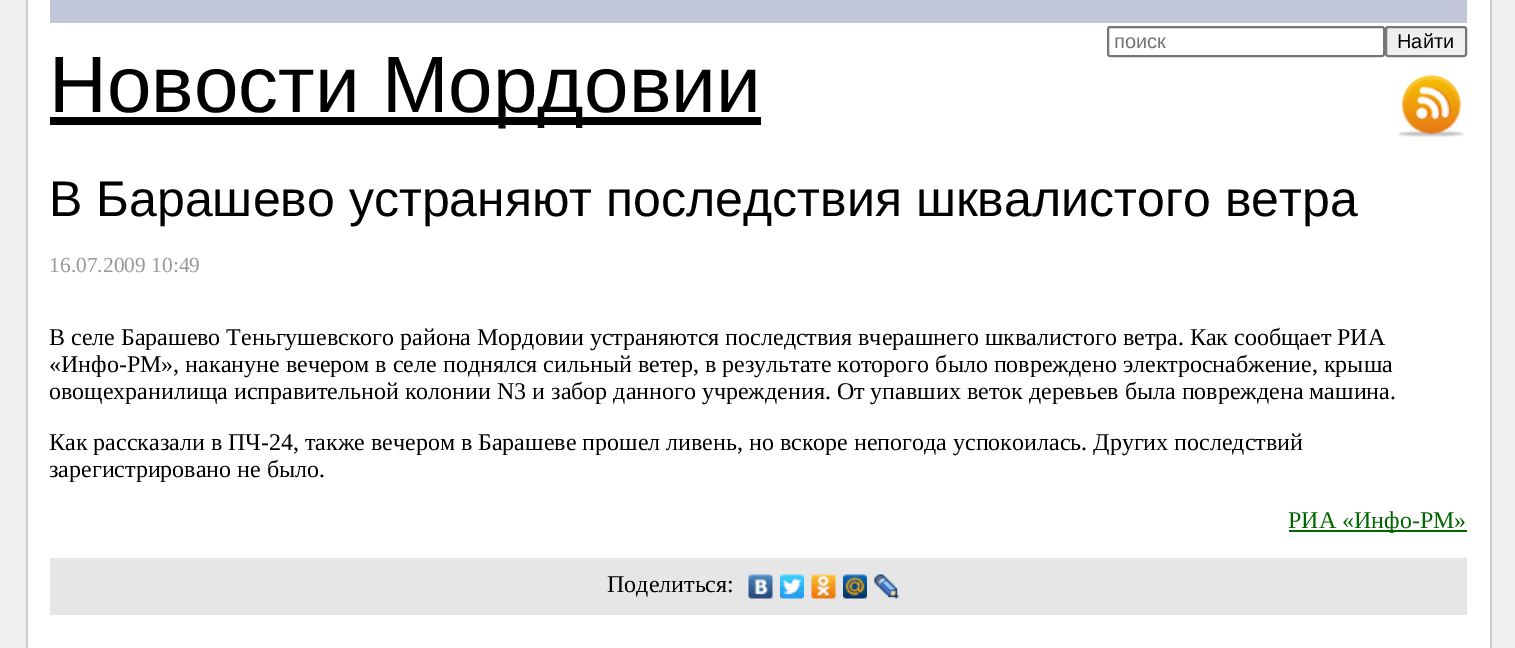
%!PS
<< /PageSize [1515 648] >> setpagedevice
/f/fill load def
/s/stroke load def
/q/gsave load def
/Q_/grestore load def
/w/setlinewidth load def
/C { dup -16 bitshift 255 div exch dup -8 bitshift 255 and 255 div exch 255 and 255 div setrgbcolor } def
/F { [ exch dup neg 0 0 3 -1 roll 0 0 ] selectfont } def
/T { moveto show } def
/R { rectfill } def
/Q { 5 dict begin { /r /h /w /y /x } { exch def } forall
  x r add y moveto x w add y 2 copy h add r arct x w add y h add x 1 index r arct
  x y h add x y r arct x y 2 copy exch w add exch r arct closepath end } def
/I { 5 dict begin { /h /w /y /x /name } { exch def } forall
  gsave x y translate w h scale
  w h 8 [w 0 0 h 0 0] name (r) file false 3 colorimage grestore end } def
0 648 translate 1 -1 scale
4 setmiterlimit
16#EFEFEF C
0 0 1515 648 R
16#FFFFFF C
28 0 1462 648 R
16#CCCCCC C
1490 0 2 648 R
26 0 2 648 R
16#C1C7D8 C
50 0 1417 23 R
16#767676 C
2 w
1108 27 276 29 2 Q s
/LiberationSans-Regular 20 F
16#757575 C
(поиск) 1114 48 T
16#EFEFEF C
1386 27 80 29 2 Q q f Q_
16#767676 C
s
16#000000 C
(Найти) 1397 48 T
50 117 711 8 R
/LiberationSans-Regular 80 F
(Новости Мордовии) 49 112 T
(1.rgb) 1398 74 66 63 I
/LiberationSans-Regular 50 F
(В Барашево устраняют последствия шквалистого ветра) 49 216 T
/LiberationSerif-Regular 21.5 F
16#999999 C
(16.07.2009 10:49) 49 272 T
/LiberationSerif-Regular 24 F
16#000000 C
(В селе Барашево Теньгушевского района Мордовии устраняются последствия вчерашнего шквалистого ветра. Как сообщает РИА) 49 345 T
(«Инфо-РМ», накануне вечером в селе поднялся сильный ветер, в результате которого было повреждено электроснабжение, крыша) 49 372 T
q
50 300 1417 258 rectclip
(овощехранилища исправительной колонии N3 и забор данного учреждения. От упавших веток деревьев была повреждена машина.) 49 399 T
Q_
(Как рассказали в ПЧ-24, также вечером в Барашеве прошел ливень, но вскоре непогода успокоилась. Других последствий) 49 450 T
(зарегистрировано не было.) 49 477 T
16#006600 C
1289 530 178 2 R
(РИА «Инфо-РМ») 1288 528 T
16#E6E6E6 C
50 558 1417 57 R
16#000000 C
(Поделиться:) 607 592 T
(2.rgb) 748 574 25 25 I
(3.rgb) 780 574 24 25 I
(4.rgb) 811 574 25 25 I
(5.rgb) 843 574 24 25 I
(6.rgb) 874 574 25 25 I
showpage
